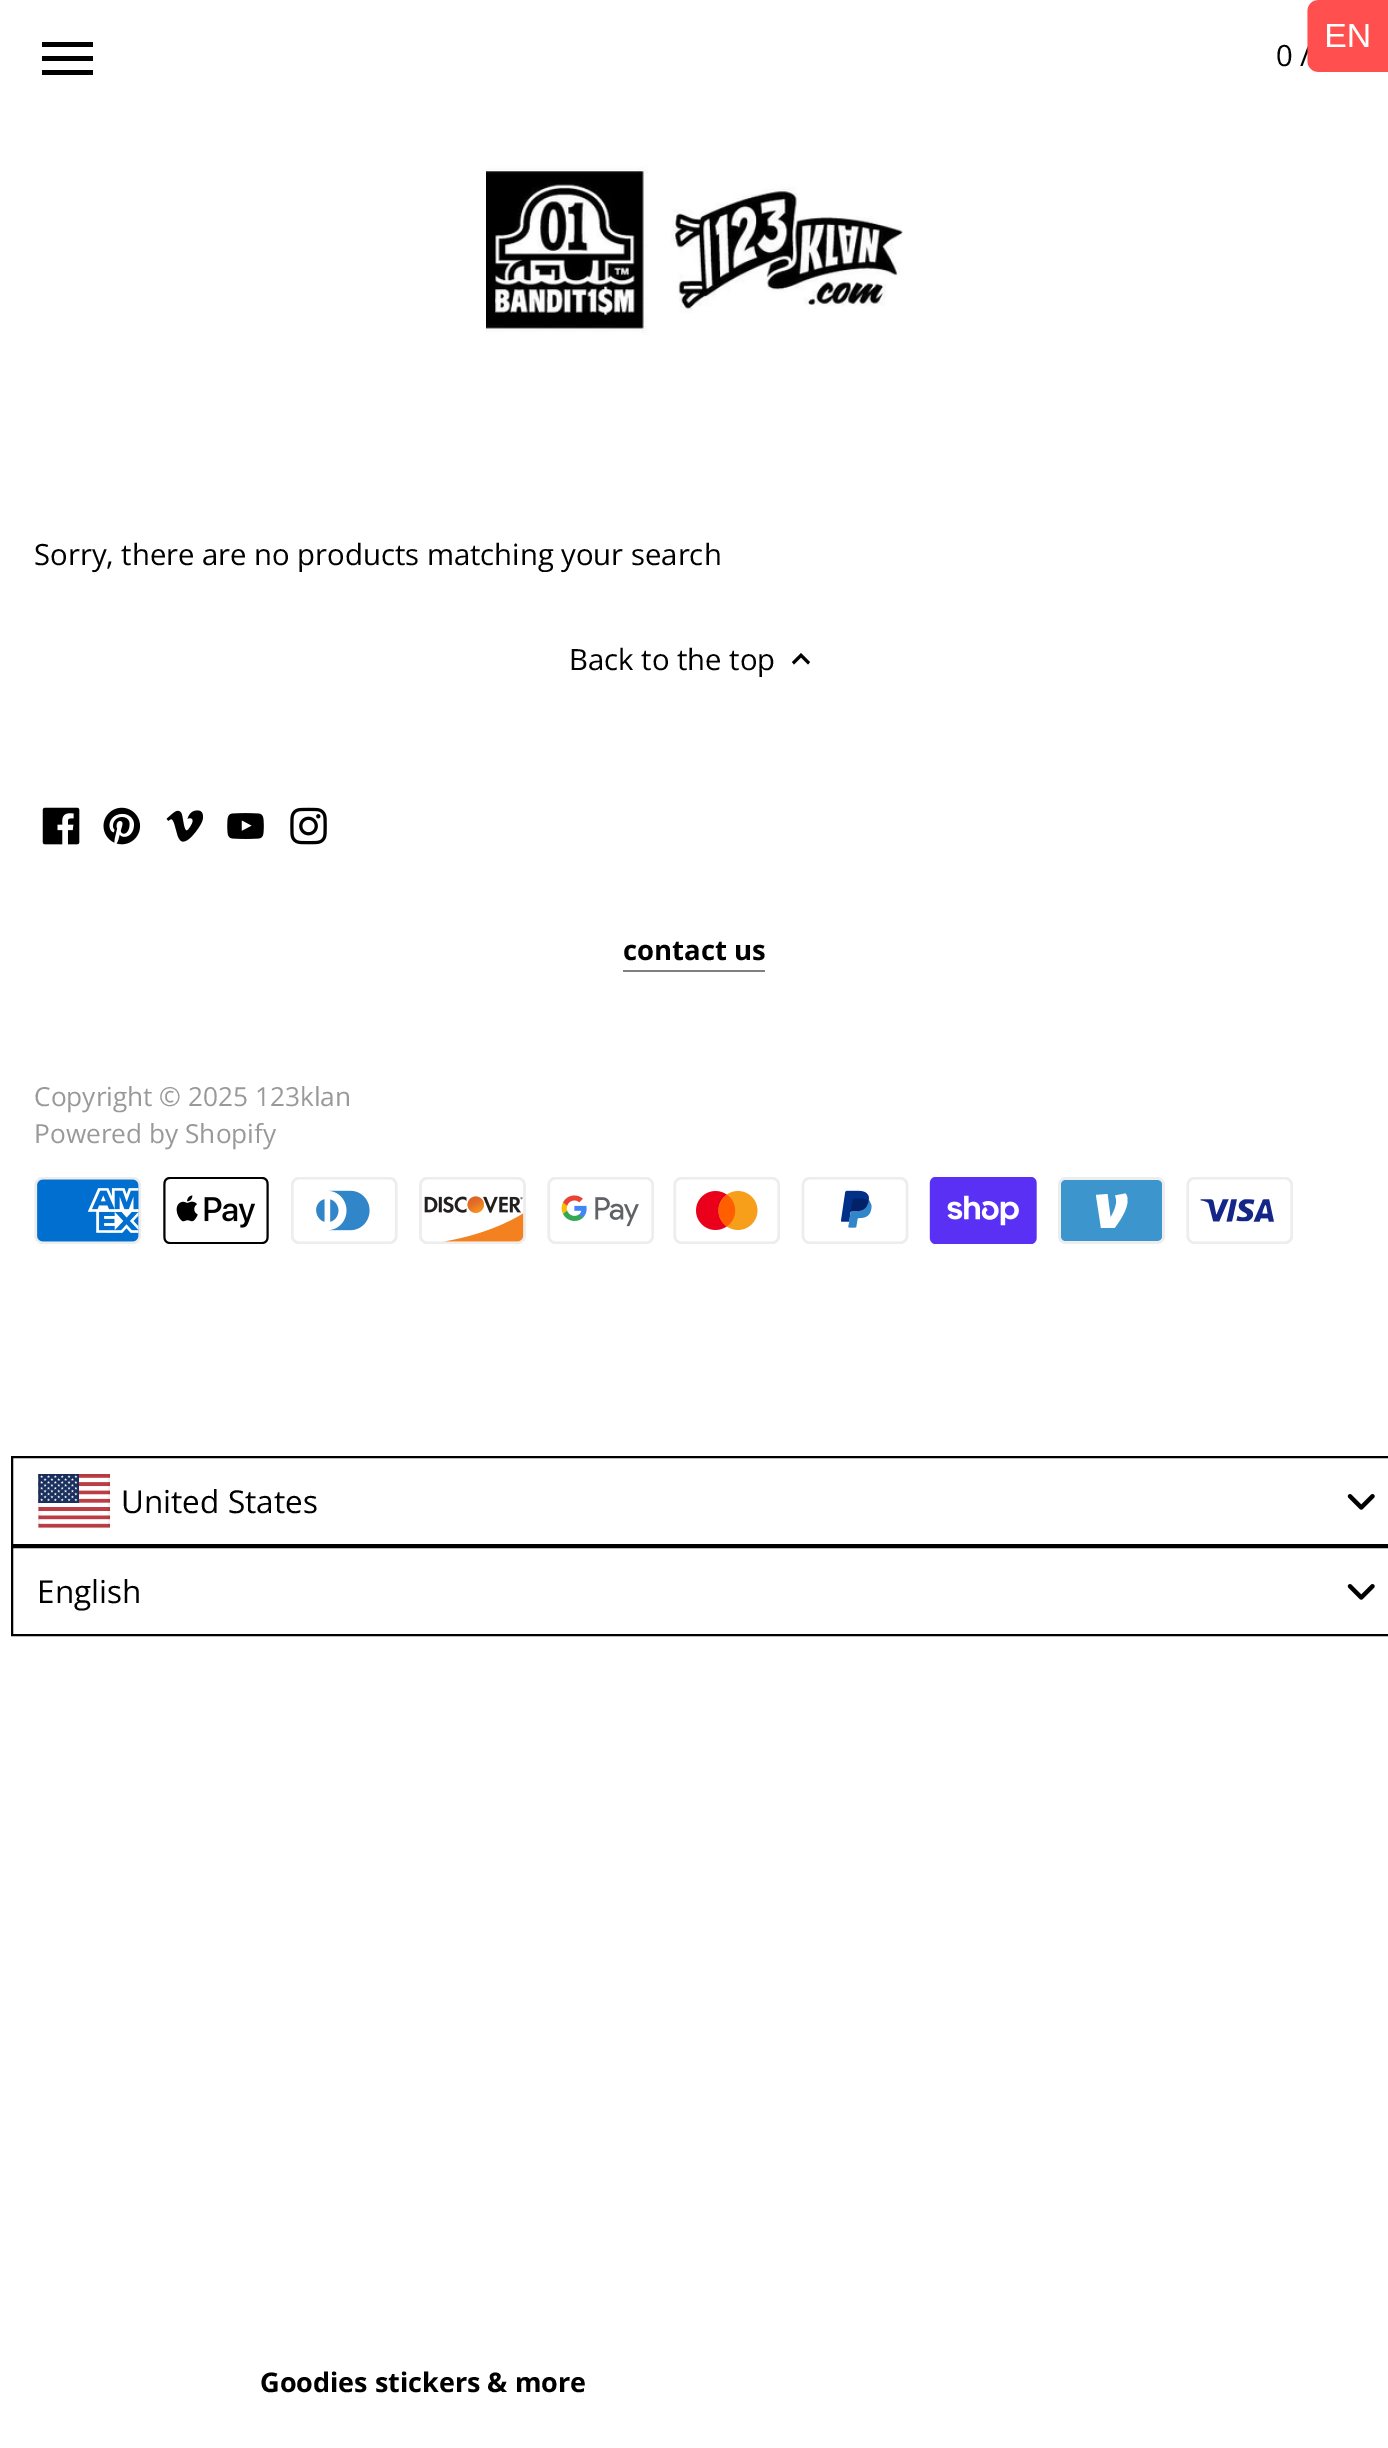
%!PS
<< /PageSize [1388 2448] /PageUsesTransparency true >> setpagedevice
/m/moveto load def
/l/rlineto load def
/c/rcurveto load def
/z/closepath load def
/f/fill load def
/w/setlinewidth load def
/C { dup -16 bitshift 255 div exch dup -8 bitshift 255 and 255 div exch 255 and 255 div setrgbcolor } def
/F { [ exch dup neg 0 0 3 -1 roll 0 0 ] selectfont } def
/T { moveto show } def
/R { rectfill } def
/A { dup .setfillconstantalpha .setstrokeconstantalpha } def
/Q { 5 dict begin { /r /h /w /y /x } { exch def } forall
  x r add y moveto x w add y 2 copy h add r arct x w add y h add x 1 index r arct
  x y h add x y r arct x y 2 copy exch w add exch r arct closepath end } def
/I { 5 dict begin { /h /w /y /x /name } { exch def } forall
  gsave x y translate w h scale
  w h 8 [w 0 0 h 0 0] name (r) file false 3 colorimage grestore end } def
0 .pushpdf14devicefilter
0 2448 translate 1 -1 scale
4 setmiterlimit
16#FFFFFF C
0 0 1388 2448 R
/OpenSans-Regular 29.25 F
16#000000 C
(0 /) 1276 66 T
(1.rgb) 1307 0 81 72 I
42 75 m 51 0 l 0 -5 l -51 0 l z 42 61 m 51 0 l 0 -5 l -51 0 l z 42 42 m 0 5 l 51 0 l 0 -5 l z f
(2.rgb) 486 165 417 170 I
(Sorry, there are no products matching your search) 34 565 T
/OpenSans-Bold 27 F
(Goodies stickers & more) 260 2392 T
/OpenSans-Regular 29.25 F
(Back to the top) 569 670 T
794 664.5 m 7 -7 l 7 7 l 2 -2.5 l -9 -9 l -9 9 l z f
(3.rgb) 42 807 38 38 I
(4.rgb) 103 807 38 38 I
(5.rgb) 166 810 38 32 I
(6.rgb) 227 813 37 26 I
(7.rgb) 290 807 37 38 I
/OpenSans-Bold 27.5 F
(contact us) 623 960 T
16#808080 C
623 970 142 2 R
/OpenSans-Regular 26.25 F
16#999999 C
(Copyright © 2025 123klan) 34 1106 T
(Powered by Shopify) 34 1143 T
(8.rgb) 34 1177 107 67 I
(9.rgb) 163 1177 106 67 I
(10.rgb) 291 1177 107 67 I
(11.rgb) 419 1177 107 67 I
(12.rgb) 547 1177 107 67 I
(13.rgb) 673 1177 107 67 I
(14.rgb) 801 1177 108 67 I
(15.rgb) 929 1177 108 67 I
16#EDEDED C
1058 1177 107 67 8 Q f
(16.rgb) 1186 1177 107 67 I
16#3D95CE C
1156 1180 m 4 0 6 2 6 5 c 0 51 l 0 3 -2 5 -6 5 c -90 0 l -3 0 -5 -2 -5 -5 c 0 -51 l 0 -3 2 -5 5 -5 c 90 0 l eofill
16#FFFFFF C
1127.5 1200.5 m 0 8.5 -7 19.5 -13 27.5 c -13.5 0 l -5 -33 l 11.5 -1 l 3 23.5 l 3.5 -6 8 -15 4.5 -22 c 10.5 -2 l 1.5 2 2 4 2 7 c z f
(17.rgb) 1347 1494 28 16 I
16#000000 C
2 w
12 1457 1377 88 rectstroke
(18.rgb) 38 1474 72 54 I
0.05 A
39 1475 70 52 rectstroke
/OpenSans-Regular 31.5 F
1 A
(United States) 121 1513 T
(17.rgb) 1347 1584 28 16 I
12 1547 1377 88 rectstroke
(English) 37 1603 T
.poppdf14devicefilter showpage
